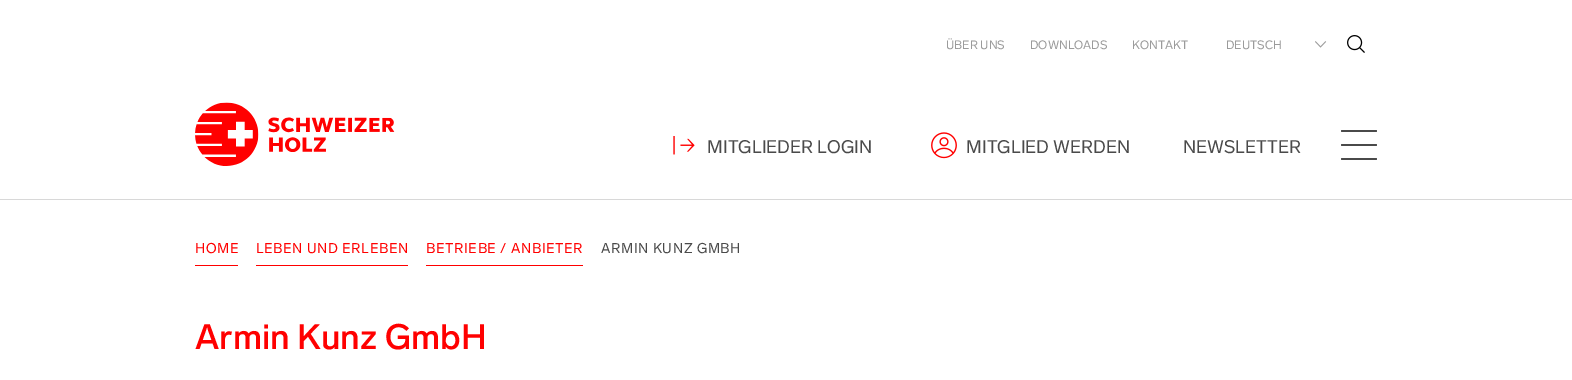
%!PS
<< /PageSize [1572 380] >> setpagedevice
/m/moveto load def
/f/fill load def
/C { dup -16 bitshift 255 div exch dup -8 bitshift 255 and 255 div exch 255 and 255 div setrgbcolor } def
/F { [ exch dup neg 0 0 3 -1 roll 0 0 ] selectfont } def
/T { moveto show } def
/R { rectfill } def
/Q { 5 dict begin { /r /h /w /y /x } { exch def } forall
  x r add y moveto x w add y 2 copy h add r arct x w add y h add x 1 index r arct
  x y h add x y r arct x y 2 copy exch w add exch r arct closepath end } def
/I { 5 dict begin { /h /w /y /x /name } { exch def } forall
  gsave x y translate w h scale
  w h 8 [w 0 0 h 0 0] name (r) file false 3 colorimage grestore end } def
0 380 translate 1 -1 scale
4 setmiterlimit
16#FFFFFF C
0 0 1572 380 R
16#D8D8D8 C
0 199 1572 1 R
(1.rgb) 195 102 200 64 I
/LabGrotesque-Regular 12 F
16#9B9B9B C
(ÜBER UNS) 946 49 T
(DOWNLOADS) 1030 49 T
(KONTAKT) 1132 49 T
(DEUTSCH) 1226 49 T
(2.rgb) 1315 41 12 7 I
(3.rgb) 1347 35 18 18 I
(4.rgb) 673 136 22 19 I
/LabGrotesque-Regular 18 F
16#4A4A4A C
(MITGLIEDER LOGIN) 707 153 T
(5.rgb) 931 132 26 27 I
(MITGLIED WERDEN) 966 153 T
(NEWSLETTER) 1183 153 T
1341 130 36 2 1 Q f
1341 144 36 2 1 Q f
1341 158 36 2 1 Q f
/LabGrotesque-Regular 14 F
16#FF0000 C
195 253 m .6 0 (HOME) ashow
195 265 43 1 R
256 253 m .6 0 (LEBEN UND ERLEBEN) ashow
256 265 152 1 R
426 253 m .6 0 (BETRIEBE / ANBIETER) ashow
426 265 157 1 R
16#4A4A4A C
601 253 m .6 0 (ARMIN KUNZ GMBH) ashow
/LabGrotesque-Medium 35 F
16#FF0000 C
(Armin Kunz GmbH) 195 349 T
showpage
